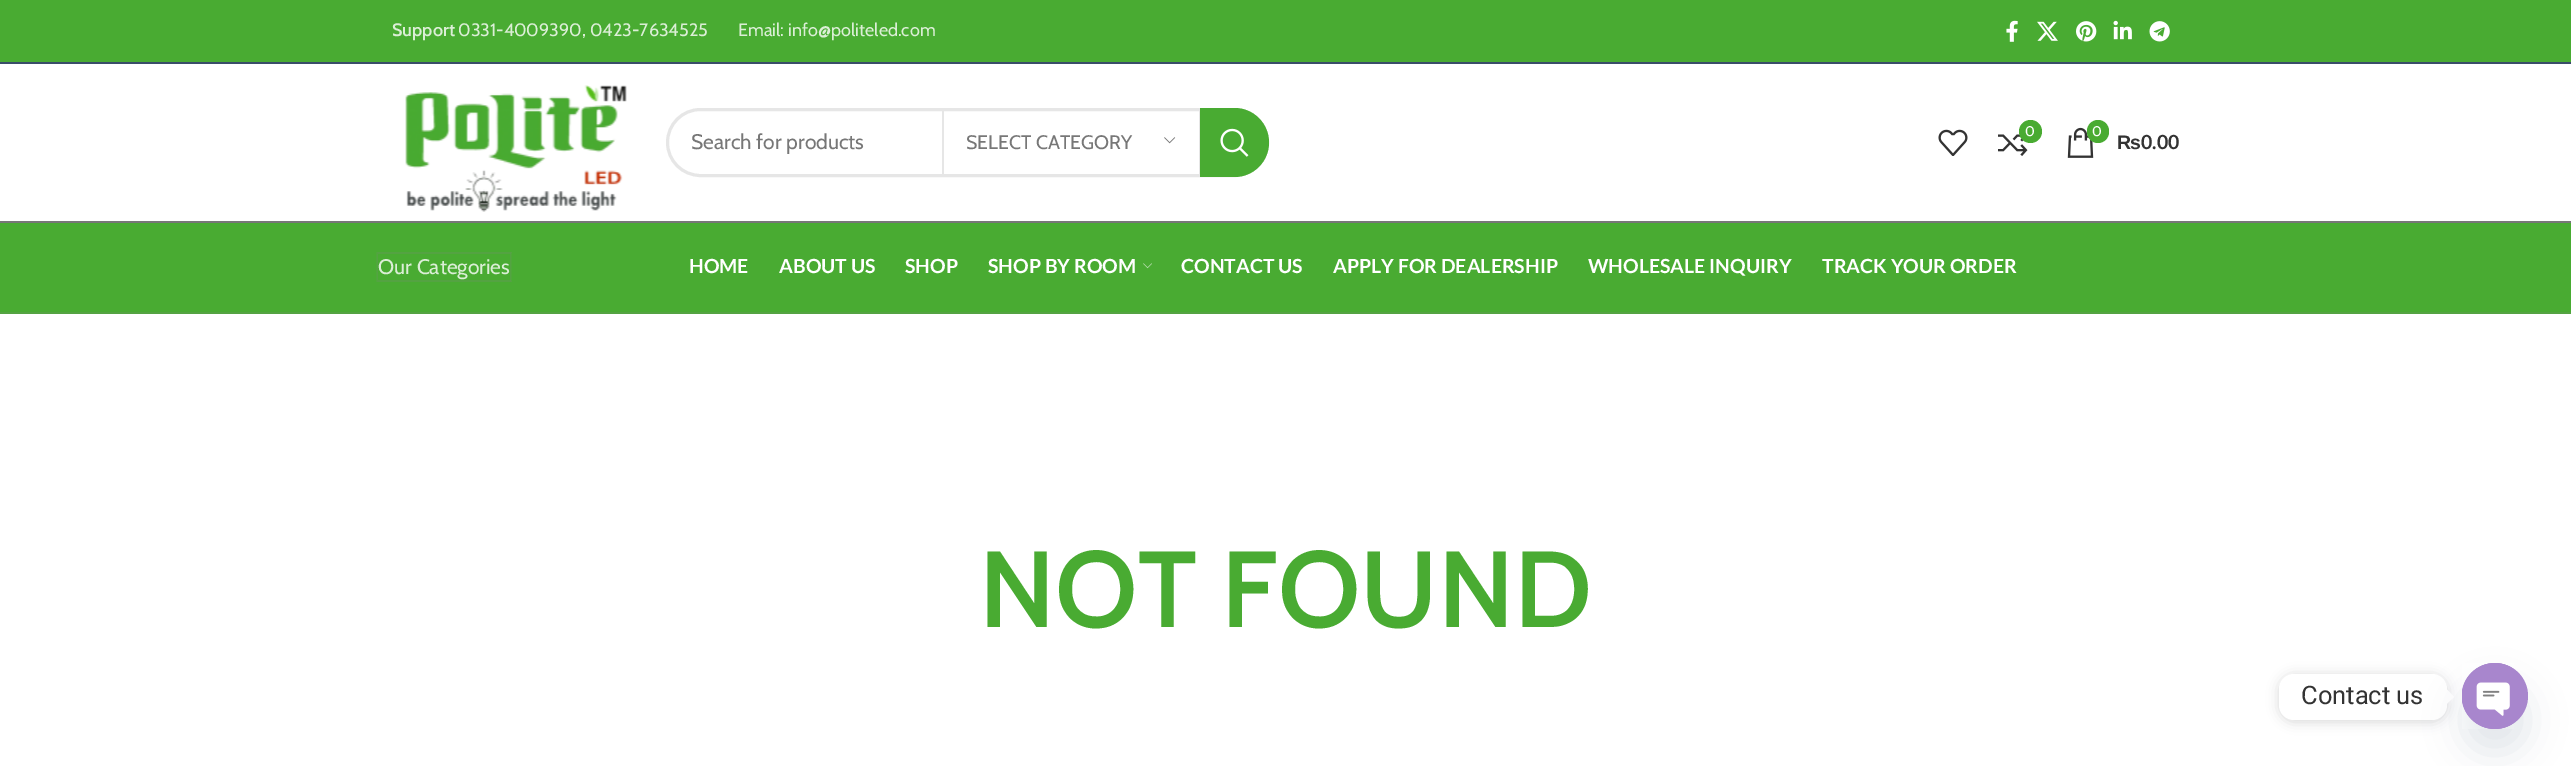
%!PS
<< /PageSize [2571 766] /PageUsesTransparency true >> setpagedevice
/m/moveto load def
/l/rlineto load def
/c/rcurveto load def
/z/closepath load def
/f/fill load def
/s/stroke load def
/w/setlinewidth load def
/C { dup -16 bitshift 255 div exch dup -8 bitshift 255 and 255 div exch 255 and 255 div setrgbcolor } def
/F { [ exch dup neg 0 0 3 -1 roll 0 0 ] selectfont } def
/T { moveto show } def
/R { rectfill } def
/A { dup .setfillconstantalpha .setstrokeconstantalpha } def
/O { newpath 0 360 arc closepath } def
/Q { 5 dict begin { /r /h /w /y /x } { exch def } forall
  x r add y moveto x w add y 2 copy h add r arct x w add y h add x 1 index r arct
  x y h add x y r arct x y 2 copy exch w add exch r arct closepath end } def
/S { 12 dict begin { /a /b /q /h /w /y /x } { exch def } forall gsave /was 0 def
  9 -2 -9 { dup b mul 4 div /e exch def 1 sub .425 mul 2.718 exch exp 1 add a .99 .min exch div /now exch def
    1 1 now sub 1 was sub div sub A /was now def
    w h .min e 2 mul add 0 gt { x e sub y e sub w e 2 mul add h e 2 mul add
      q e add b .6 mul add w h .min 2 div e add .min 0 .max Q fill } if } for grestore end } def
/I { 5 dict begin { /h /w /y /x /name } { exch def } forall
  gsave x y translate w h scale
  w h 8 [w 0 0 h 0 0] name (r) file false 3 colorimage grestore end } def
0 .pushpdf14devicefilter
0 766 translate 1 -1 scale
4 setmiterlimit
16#FFFFFF C
0 0 2571 766 R
16#49AB32 C
0 0 2571 62 R
16#3A4D69 C
0 62 2571 2 R
/Cabin-SemiBold 18 F
16#DBEED6 C
(Support) 392 36 T
/Cabin-Regular 18 F
(0331-4009390, 0423-7634525) 458 36 T
(Email: info@politeled.com) 738 36 T
(1.rgb) 2006 20 12 22 I
(2.rgb) 2037 21 21 20 I
(3.rgb) 2076 21 21 21 I
(4.rgb) 2113 20 19 20 I
(5.rgb) 2149 21 21 21 I
16#777777 C
0 221 2571 2 R
(6.rgb) 405 85 222 127 I
16#E6E6E6 C
3 w
667.5 109.5 600 66 33 Q s
/Cabin-Regular 21 F
16#777777 C
(Search for products) 691 149 T
16#E6E6E6 C
1199 111 1 63 R
942 111 2 63 R
/Cabin-Regular 19.5 F
16#777777 C
(SELECT CATEGORY) 966 149 T
(7.rgb) 1164 137 12 7 I
16#49AB32 C
1200 108 m 34.5 0 l 19 0 34.5 15.5 34.5 34.5 c 0 19 -15.5 34.5 -34.5 34.5 c -34.5 0 l z f
(8.rgb) 1220 128 29 29 I
(9.rgb) 1938 129 30 27 I
(10.rgb) 1998 134 30 22 I
2030.5 131.5 11.5 O f
/Cabin-Regular 14 F
16#FFFFFF C
(0) 2025 136 T
(11.rgb) 2067 127 27 31 I
16#49AB32 C
2087 120 22 23 11 Q f
16#FFFFFF C
(0) 2092 136 T
/LiberationSans-Bold 19.5 F
16#333333 C
(₨) 2117 149 T
/Lato-Bold 19.5 F
(0.00) 2141 149 T
16#49AB32 C
0 223 2571 89 R
16#54A342 C
0 312 2571 2 R
/Cabin-Regular 21 F
16#DBEED6 C
(Our Categories) 378 274 T
16#54A342 C
376.5 252 m 1.5 0 l 0 1.5 l z 378 282 m -1.5 0 l 1.5 -1.5 l z f
376.5 282 m 0 -30 l 1.5 1.5 l 0 27 l z f
378 252 m 134 0 l -2 2 l -132 0 l z f
0.2 A
16#818181 C
511.5 252 m 0 30 l -1.5 -1.5 l 0 -27 l z f
512 282 m -134 0 l 0 -2 l 132 0 l z f
/Lato-Bold 19.5 F
1 A
16#FFFFFF C
(HOME) 689 273 T
(ABOUT US) 779 273 T
(SHOP) 905 273 T
(SHOP BY ROOM) 988 273 T
(12.rgb) 1143 263 9 6 I
(CONTACT US) 1181 273 T
(APPLY FOR DEALERSHIP) 1333 273 T
(WHOLESALE INQUIRY) 1588 273 T
(TRACK YOUR ORDER) 1822 273 T
/Cabin-SemiBold 108 F
16#49AB32 C
(NOT FOUND) 979 627 T
16#000000 C
2279 675 168 47 15 6 .15 S
16#FFFFFF C
2279 674 168 46 15 Q f
/Roboto-Regular 25.5 F
16#333333 C
(Contact us) 2301 704 T
16#FFFFFF C
2446.5 704 m 0 -15 l 7.5 8 l z f
16#49687E C
2462 687 66 66 33 18 .16 S
16#A886CD C
2495 696 33 O f
(13.rgb) 2462 663 52 66 I
.poppdf14devicefilter showpage
